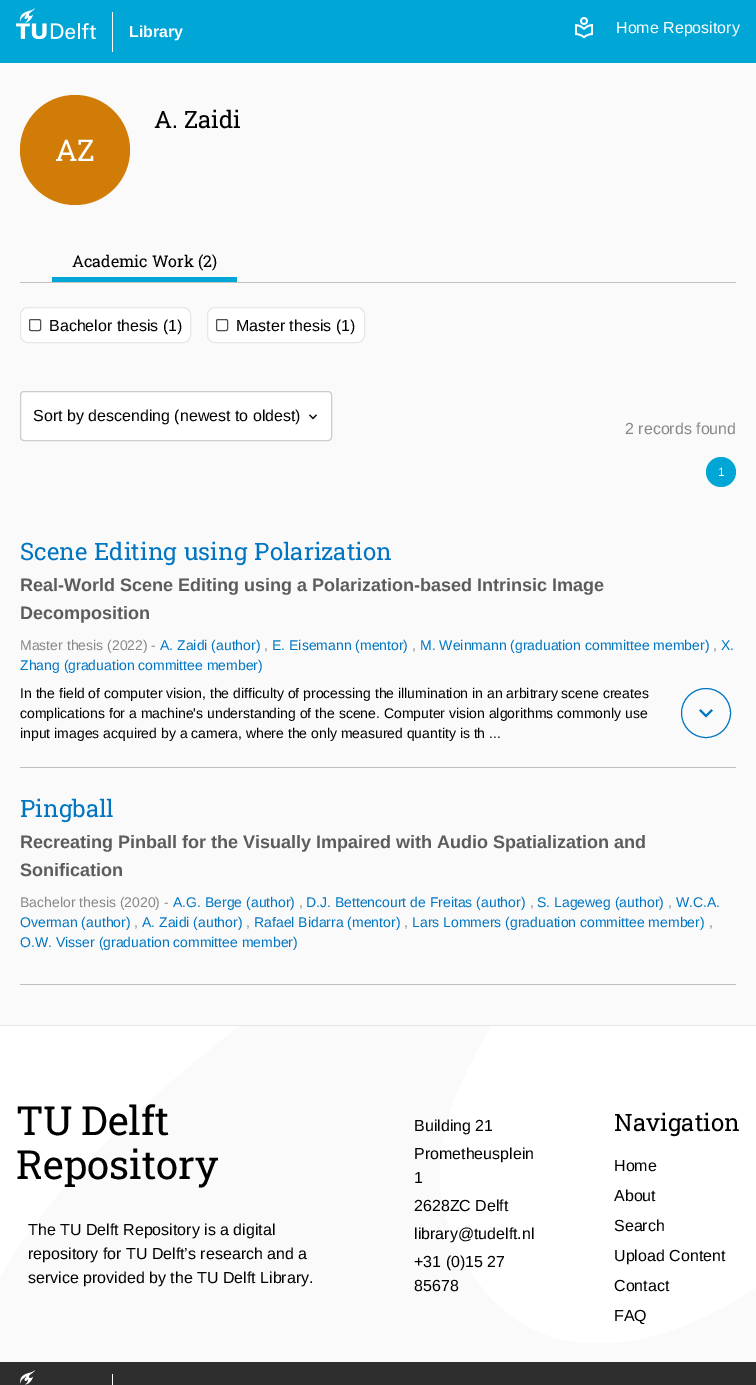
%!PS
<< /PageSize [756 1385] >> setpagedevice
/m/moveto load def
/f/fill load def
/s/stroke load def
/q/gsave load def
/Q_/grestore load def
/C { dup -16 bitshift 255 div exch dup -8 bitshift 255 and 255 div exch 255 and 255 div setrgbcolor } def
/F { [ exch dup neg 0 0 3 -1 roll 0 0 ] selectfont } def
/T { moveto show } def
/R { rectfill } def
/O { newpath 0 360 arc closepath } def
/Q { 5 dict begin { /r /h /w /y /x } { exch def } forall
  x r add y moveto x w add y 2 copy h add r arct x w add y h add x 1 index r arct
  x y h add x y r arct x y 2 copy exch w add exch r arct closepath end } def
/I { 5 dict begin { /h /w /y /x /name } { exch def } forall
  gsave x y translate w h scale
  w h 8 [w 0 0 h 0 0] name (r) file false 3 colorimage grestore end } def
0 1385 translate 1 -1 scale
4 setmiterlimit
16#FAFAFA C
0 0 756 1385 R
16#00A6D6 C
0 0 756 63 R
(1.rgb) 16 8 80 31 I
16#FFFFFF C
112 12 1 40 R
/LiberationSans-Bold 16 F
(Library) 129 37 T
(2.rgb) 575 17 18 22 I
/LiberationSans-Regular 16 F
(Home Repository) 616 33 T
/RobotoSlab-Regular 24 F
16#000000 C
(A. Zaidi) 154 128 T
16#D17C07 C
75 150 55 O f
/RobotoSlab-Regular 30 F
16#FFFFFF C
(AZ) 55 161 T
16#C3C3C3 C
20 282 716 1 R
16#00A6D6 C
52 277 185 5 R
/RobotoSlab-Regular 16 F
16#000000 C
(Academic Work \(2\)) 72 267 T
16#FFFFFF C
20.5 307.5 170 35 7.5 Q q f Q_
16#E5E7EB C
s
16#4F4F4F C
29.5 319.5 11 11 1.5 Q s
/LiberationSans-Regular 16 F
16#000000 C
(Bachelor thesis \(1\)) 49 331 T
16#FFFFFF C
207.5 307.5 157 35 7.5 Q q f Q_
16#E5E7EB C
s
16#4F4F4F C
216.5 319.5 11 11 1.5 Q s
16#000000 C
(Master thesis \(1\)) 236 331 T
16#FFFFFF C
20 391 312 50 4 Q f
(3.rgb) 309 414 8 6 I
16#CCCCCC C
20.5 391.5 311 49 3.5 Q s
16#000000 C
(Sort by descending \(newest to oldest\)) 33 421 T
16#888888 C
(2 records found) 625 434 T
16#00A6D6 C
721 472 15 O f
/LiberationSans-Regular 12 F
16#FFFFFF C
(1) 718 476 T
16#BFBFBF C
20 767 716 1 R
/RobotoSlab-Regular 24 F
16#0076C2 C
20 560 m 1 0 32 (Scene Editing using Polarization) widthshow
/LiberationSans-Bold 18 F
16#5C5C5C C
(Real-World Scene Editing using a Polarization-based Intrinsic Image) 20 591 T
(Decomposition) 20 619 T
/LiberationSans-Regular 14 F
16#888888 C
(Master thesis \(2022\) -) 20 650 T
16#0076C2 C
(A. Zaidi \(author\)) 160 650 T
16#888888 C
(,) 264 650 T
16#0076C2 C
(E. Eisemann \(mentor\)) 272 650 T
16#888888 C
(,) 412 650 T
16#0076C2 C
(M. Weinmann \(graduation committee member\)) 420 650 T
16#888888 C
(,) 713 650 T
16#0076C2 C
(X.) 721 650 T
(Zhang \(graduation committee member\)) 20 670 T
16#000000 C
(In the field of computer vision, the difficulty of processing the illumination in an arbitrary scene creates) 20 698 T
(complications for a machine's understanding of the scene. Computer vision algorithms commonly use) 20 718 T
(input images acquired by a camera, where the only measured quantity is th ...) 20 738 T
16#0076C2 C
706 713 24.5 O s
(4.rgb) 699 709 14 9 I
16#BFBFBF C
20 984 716 1 R
/RobotoSlab-Regular 24 F
16#0076C2 C
(Pingball) 20 817 T
/LiberationSans-Bold 18 F
16#5C5C5C C
(Recreating Pinball for the Visually Impaired with Audio Spatialization and) 20 848 T
(Sonification) 20 876 T
/LiberationSans-Regular 14 F
16#888888 C
(Bachelor thesis \(2020\) -) 20 907 T
16#0076C2 C
(A.G. Berge \(author\)) 173 907 T
16#888888 C
(,) 299 907 T
16#0076C2 C
(D.J. Bettencourt de Freitas \(author\)) 306 907 T
16#888888 C
(,) 530 907 T
16#0076C2 C
(S. Lageweg \(author\)) 537 907 T
16#888888 C
(,) 668 907 T
16#0076C2 C
(W.C.A.) 676 907 T
(Overman \(author\)) 20 927 T
16#888888 C
(,) 134 927 T
16#0076C2 C
(A. Zaidi \(author\)) 142 927 T
16#888888 C
(,) 246 927 T
16#0076C2 C
(Rafael Bidarra \(mentor\)) 254 927 T
16#888888 C
(,) 404 927 T
16#0076C2 C
(Lars Lommers \(graduation committee member\)) 412 927 T
16#888888 C
(,) 709 927 T
16#0076C2 C
(O.W. Visser \(graduation committee member\)) 20 947 T
(5.rgb) 0 1026 756 317 I
16#E5E5E5 C
0 1025 756 1 R
/RobotoSlab-Regular 40 F
16#000000 C
16 1135 m -2 0 32 (TU Delft) widthshow
(Repository) 16 1179 T
/LiberationSans-Regular 16 F
(The TU Delft Repository is a digital) 28 1235 T
(repository for TU Delft’s research and a) 28 1259 T
(service provided by the TU Delft Library.) 28 1283 T
(Building 21) 414 1131 T
(Prometheusplein) 414 1159 T
(1) 414 1183 T
(2628ZC Delft) 414 1211 T
(library@tudelft.nl) 414 1239 T
(+31 \(0\)15 27) 414 1267 T
(85678) 414 1291 T
/RobotoSlab-Regular 24 F
(Navigation) 614 1131 T
/LiberationSans-Regular 16 F
(Home) 614 1171 T
(About) 614 1201 T
(Search) 614 1231 T
(Upload Content) 614 1261 T
(Contact) 614 1291 T
(FAQ) 614 1321 T
16#2D2D2D C
0 1362 756 23 R
(6.rgb) 20 1370 15 15 I
16#FFFFFF C
112 1374 1 11 R
showpage
